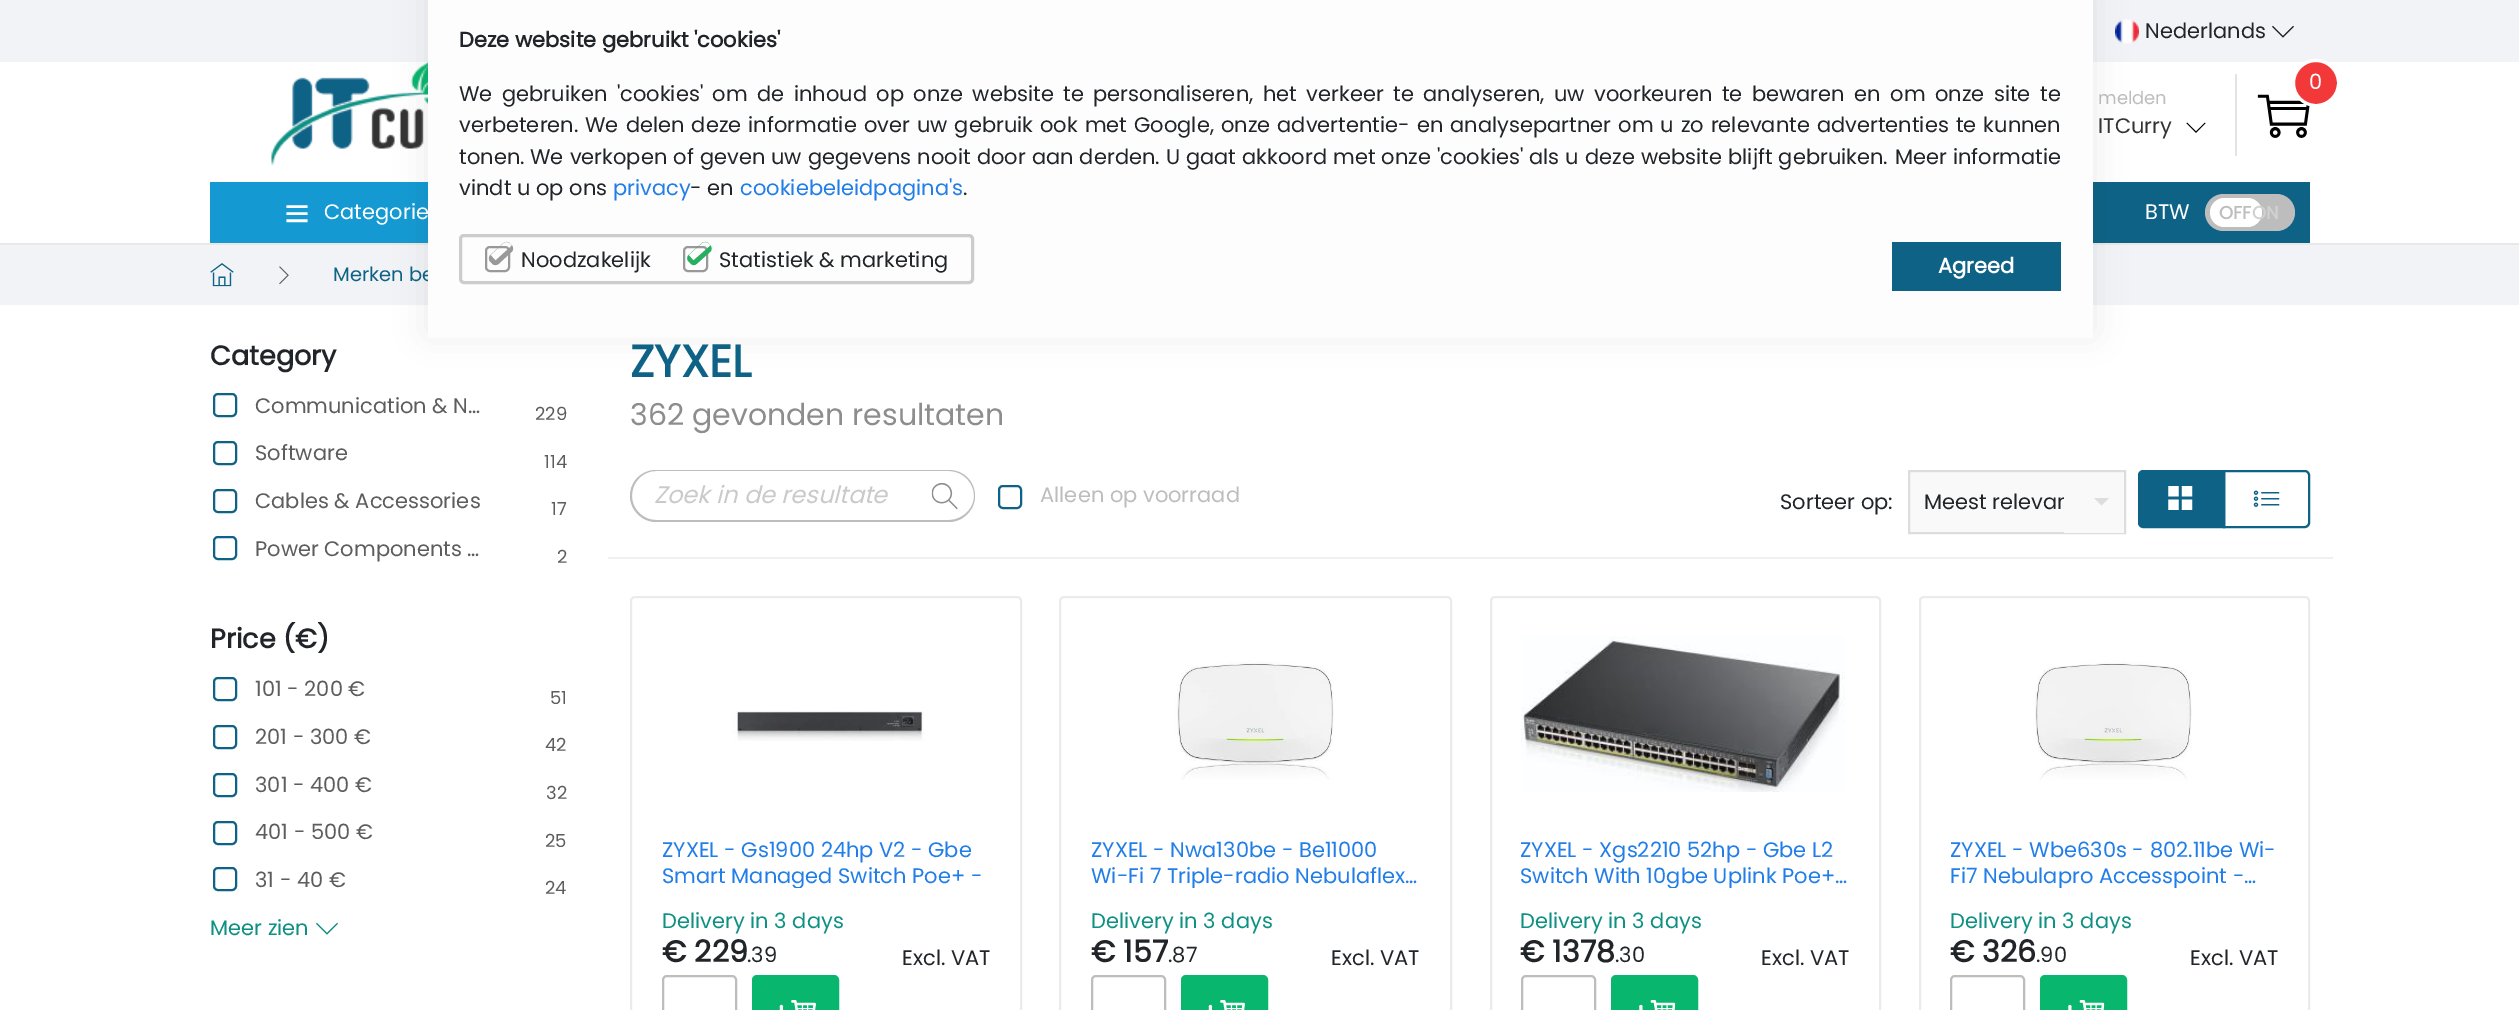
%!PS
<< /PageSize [2519 1010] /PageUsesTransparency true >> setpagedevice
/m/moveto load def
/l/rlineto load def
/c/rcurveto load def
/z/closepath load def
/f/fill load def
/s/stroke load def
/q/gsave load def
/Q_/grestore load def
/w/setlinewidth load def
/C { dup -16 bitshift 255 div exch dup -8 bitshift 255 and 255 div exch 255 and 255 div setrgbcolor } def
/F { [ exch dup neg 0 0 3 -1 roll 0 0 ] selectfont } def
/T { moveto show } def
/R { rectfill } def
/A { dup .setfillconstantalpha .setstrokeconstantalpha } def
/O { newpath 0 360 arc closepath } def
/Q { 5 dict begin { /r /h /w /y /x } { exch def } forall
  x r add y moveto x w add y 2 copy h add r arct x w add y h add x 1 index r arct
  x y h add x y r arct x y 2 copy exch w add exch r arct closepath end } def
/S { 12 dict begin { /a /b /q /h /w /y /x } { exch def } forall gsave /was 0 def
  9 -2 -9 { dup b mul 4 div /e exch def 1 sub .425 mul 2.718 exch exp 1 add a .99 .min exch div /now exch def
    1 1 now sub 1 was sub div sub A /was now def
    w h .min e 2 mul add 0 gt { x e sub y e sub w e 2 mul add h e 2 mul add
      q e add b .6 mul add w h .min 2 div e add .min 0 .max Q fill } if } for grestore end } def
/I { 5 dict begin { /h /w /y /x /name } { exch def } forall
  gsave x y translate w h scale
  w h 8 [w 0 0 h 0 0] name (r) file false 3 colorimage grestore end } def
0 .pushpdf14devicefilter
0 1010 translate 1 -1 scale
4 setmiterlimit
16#FFFFFF C
0 0 2519 1010 R
16#E9E8E7 C
0 243 2519 2 R
16#F2F3F7 C
0 0 2519 62 R
(1.rgb) 2115 19 24 25 I
/Poppins-Regular 21 F
16#212529 C
(Nederlands) 2145 38 T
(2.rgb) 2272 25 22 13 I
(3.rgb) 271 61 157 105 I
(4.rgb) 2257 94 53 44 I
16#F23838 C
2316 83 22.5 O q f Q_
16#FFFFFF C
3 w
s
(0) 2309 89 T
/Poppins-Regular 18 F
16#BDBDBD C
(melden) 2098 104 T
/Poppins-Regular 21 F
16#333333 C
(ITCurry) 2098 133 T
(5.rgb) 2186 122 20 11 I
16#E3E3E3 C
2235 74 2 82 R
16#1499D2 C
210 182 218 61 R
(6.rgb) 286 205 22 18 I
16#FFFFFF C
(Categorie) 324 219 T
16#0E6286 C
2093 182 217 61 R
16#FFFFFF C
(BTW) 2145 219 T
16#BDBDBD C
2205 194 90 37 18.5 Q f
16#FFFFFF C
2210 198 52 29 14.5 Q f
/Poppins-Bold 18 F
16#BDBDBD C
(OFF) 2219 219 T
16#D1D1D1 C
(ON) 2252 219 T
16#F2F3F7 C
0 245 2519 60 R
(7.rgb) 210 263 24 24 I
(8.rgb) 279 266 10 19 I
/Poppins-Regular 19.5 F
16#0E6286 C
(Merken be) 333 281 T
/Poppins-Bold 27 F
16#212529 C
(Category) 210 365 T
16#0E6286 C
2 w
214 394 22 22 4 Q s
/Poppins-Regular 21 F
16#5D5D5D C
(Communication & N…) 255 413 T
/Poppins-Regular 18 F
(229) 535 420 T
16#0E6286 C
214 442 22 22 4 Q s
/Poppins-Regular 21 F
16#5D5D5D C
(Software) 255 460 T
/Poppins-Regular 18 F
(114) 544 468 T
16#0E6286 C
214 490 22 22 4 Q s
/Poppins-Regular 21 F
16#5D5D5D C
(Cables & Accessories) 255 508 T
/Poppins-Regular 18 F
(17) 551 515 T
16#0E6286 C
214 537 22 22 4 Q s
/Poppins-Regular 21 F
16#5D5D5D C
(Power Components …) 255 556 T
/Poppins-Regular 18 F
(2) 557 563 T
/Poppins-Bold 27 F
16#212529 C
(Price \(€\)) 210 648 T
16#0E6286 C
214 678 22 22 4 Q s
/Poppins-Regular 21 F
16#5D5D5D C
(101 - 200 €) 255 696 T
/Poppins-Regular 18 F
(51) 550 704 T
16#0E6286 C
214 726 22 22 4 Q s
/Poppins-Regular 21 F
16#5D5D5D C
(201 - 300 €) 255 744 T
/Poppins-Regular 18 F
(42) 545 751 T
16#0E6286 C
214 774 22 22 4 Q s
/Poppins-Regular 21 F
16#5D5D5D C
(301 - 400 €) 255 792 T
/Poppins-Regular 18 F
(32) 546 799 T
16#0E6286 C
214 822 22 22 4 Q s
/Poppins-Regular 21 F
16#5D5D5D C
(401 - 500 €) 255 839 T
/Poppins-Regular 18 F
(25) 545 847 T
16#0E6286 C
214 868 22 22 4 Q s
/Poppins-Regular 21 F
16#5D5D5D C
(31 - 40 €) 255 887 T
/Poppins-Regular 18 F
(24) 545 894 T
/Poppins-Regular 21 F
16#0E9183 C
(Meer zien) 210 935 T
(9.rgb) 316 922 22 13 I
/Poppins-Bold 45 F
16#0E6286 C
(ZYXEL) 630 377 T
/Poppins-Regular 30 F
16#8D8D8D C
(362 gevonden resultaten) 630 425 T
16#F0F0F0 C
608 557 1725 2 R
16#BDBDBD C
656 470 m 259 0 l 0 52 l -259 0 l -14 0 -26 -12 -26 -26 c 0 -15 12 -26 26 -26 c z 656 471 m 259 0 l 0 49 l -259 0 l -13 0 -24 -11 -24 -24 c 0 -14 11 -25 24 -25 c z eofill
/Poppins-Italic 24 F
16#CACACA C
(Zoek in de resultate) 654 503 T
16#BDBDBD C
915 470 m 34 0 l 14 0 26 11 26 26 c 0 14 -12 26 -26 26 c -34 0 l z 915 471 m 34 0 l 13 0 25 11 25 25 c 0 13 -12 24 -25 24 c -34 0 l z eofill
(10.rgb) 931 483 27 27 I
16#0E6286 C
999 486 22 22 4 Q s
/Poppins-Regular 21 F
16#BDBDBD C
(Alleen op voorraad) 1040 502 T
16#212529 C
(Sorteer op:) 1780 509 T
16#F9F9F9 C
1909 471 m 216 0 l 0 62 l -216 0 l z q f Q_
16#DDDDDD C
s
16#212529 C
(Meest relevan) 1924 509 T
16#F9F9F9 C
2064 497 60 36 R
16#DDDDDD C
2094 498 m 15 0 l -7.5 7.5 l z f
16#0E6286 C
2143 471 m 81 0 l 0 56 l -81 0 l -2 0 -4 -2 -4 -4 c 0 -48 l 0 -2 2 -4 4 -4 c z q f Q_
s
(11.rgb) 2168 486 25 24 I
2224 471 m 81 0 l 2 0 4 2 4 4 c 0 48 l 0 2 -2 4 -4 4 c -81 0 l z s
(12.rgb) 2253 490 27 17 I
16#EBEBEB C
631 597 390 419 4 Q s
(13.rgb) 732 711 192 30 I
16#217DE7 C
(ZYXEL - Gs1900 24hp V2 - Gbe) 662 857 T
q
662 837 328 51 rectclip
(Smart Managed Switch Poe+ -) 662 883 T
Q_
16#0E9183 C
(Delivery in 3 days) 662 928 T
/Poppins-Bold 30 F
16#212529 C
(€ 229) 662 962 T
/Poppins-Regular 21 F
(.39) 747 962 T
(Excl. VAT) 902 965 T
16#BDBDBD C
663 976 73 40 4 Q s
16#08B66E C
753 976 85 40 4 Q q f Q_
s
(14.rgb) 779 1000 37 10 I
16#EBEBEB C
1060 597 391 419 4 Q s
(15.rgb) 1175 661 159 119 I
16#217DE7 C
(ZYXEL - Nwa130be - Be11000) 1091 857 T
q
1091 837 330 51 rectclip
(Wi-Fi 7 Triple-radio Nebulaflex…) 1091 883 T
Q_
16#0E9183 C
(Delivery in 3 days) 1091 928 T
/Poppins-Bold 30 F
16#212529 C
(€ 157) 1091 962 T
/Poppins-Regular 21 F
(.87) 1168 962 T
(Excl. VAT) 1331 965 T
16#BDBDBD C
1092 976 73 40 4 Q s
16#08B66E C
1182 976 85 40 4 Q q f Q_
s
(14.rgb) 1208 1000 37 10 I
16#EBEBEB C
1491 597 389 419 4 Q s
(16.rgb) 1521 636 324 156 I
16#217DE7 C
(ZYXEL - Xgs2210 52hp - Gbe L2) 1520 857 T
q
1521 837 329 51 rectclip
(Switch With 10gbe Uplink Poe+…) 1520 883 T
Q_
16#0E9183 C
(Delivery in 3 days) 1520 928 T
/Poppins-Bold 30 F
16#212529 C
(€ 1378) 1520 962 T
/Poppins-Regular 21 F
(.30) 1615 962 T
(Excl. VAT) 1761 965 T
16#BDBDBD C
1522 976 73 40 4 Q s
16#08B66E C
1612 976 85 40 4 Q q f Q_
s
(17.rgb) 1639 1000 37 10 I
16#EBEBEB C
1920 597 389 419 4 Q s
(18.rgb) 2033 661 159 119 I
16#217DE7 C
(ZYXEL - Wbe630s - 802.11be Wi-) 1950 857 T
q
1950 837 329 51 rectclip
(Fi7 Nebulapro Accesspoint -…) 1950 883 T
Q_
16#0E9183 C
(Delivery in 3 days) 1950 928 T
/Poppins-Bold 30 F
16#212529 C
(€ 326) 1950 962 T
/Poppins-Regular 21 F
(.90) 2036 962 T
(Excl. VAT) 2190 965 T
16#BDBDBD C
1951 976 73 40 4 Q s
16#08B66E C
2041 976 85 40 4 Q q f Q_
s
(17.rgb) 2068 1000 37 10 I
16#323232 C
428 -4 1665 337 0 16 .1 S
16#FDFDFD C
428 0 1665 338 R
/Poppins-Bold 21 F
16#212529 C
(Deze website gebruikt 'cookies') 459 47 T
/Poppins-Regular 21 F
459 101 m 3.9 0 32 (We gebruiken 'cookies' om de inhoud op onze website te personaliseren, het verkeer te analyseren, uw voorkeuren te bewaren en om onze site te) widthshow
(verbeteren.) 459 132 T
585 132 m 1.4 0 32 (We delen deze informatie over uw gebruik ook met Google, onze advertentie- en analysepartner om u zo relevante advertenties te kunnen) widthshow
(tonen.) 459 164 T
530 164 m .45 0 32 (We verkopen of geven uw gegevens nooit door aan derden. U gaat akkoord met onze 'cookies' als u deze website blijft gebruiken.) widthshow
(Meer informatie) 1895 164 T
(vindt u op ons) 459 195 T
16#217DE7 C
(privacy) 613 195 T
16#212529 C
(- en) 690 195 T
16#217DE7 C
(cookiebeleidpagina's) 740 195 T
16#212529 C
(.) 963 195 T
16#CCCCCC C
3 w
460.5 235.5 512 47 3.5 Q s
16#999999 C
2 w
486 247 23 24 4 Q s
510 243.5 m 2 2 l 1.5 2 1.5 5 -.5 6.5 c -13 12 l -2 1.5 -5 1.5 -6.5 -.5 c -2 -2 l -1.5 -2 -1.5 -5 .5 -6.5 c 13 -12 l 2 -1.5 5 -1.5 6.5 .5 c z 510 243.5 m 2 2 l -16.5 15 l -5 -5.5 l 13 -12 l 2 -1.5 5 -1.5 6.5 .5 c z eofill
16#212529 C
(Noodzakelijk) 521 267 T
16#999999 C
684 247 23 24 4 Q s
16#27AE60 C
708.5 243.5 m 2 2 l 1.5 2 1.5 5 -.5 6.5 c -13.5 12 l -1.5 1.5 -4.5 1.5 -6 -.5 c -2 -2 l -2 -2 -1.5 -5 0 -6.5 c 13.5 -12 l 2 -1.5 5 -1.5 6.5 .5 c z 708.5 243.5 m 2 2 l -17 15 l -5 -5.5 l 13.5 -12 l 2 -1.5 5 -1.5 6.5 .5 c z eofill
16#212529 C
(Statistiek & marketing) 719 267 T
16#0E6286 C
1892 242 169 49 R
/Poppins-Bold 21 F
16#FFFFFF C
(Agreed) 1938 273 T
.poppdf14devicefilter showpage
